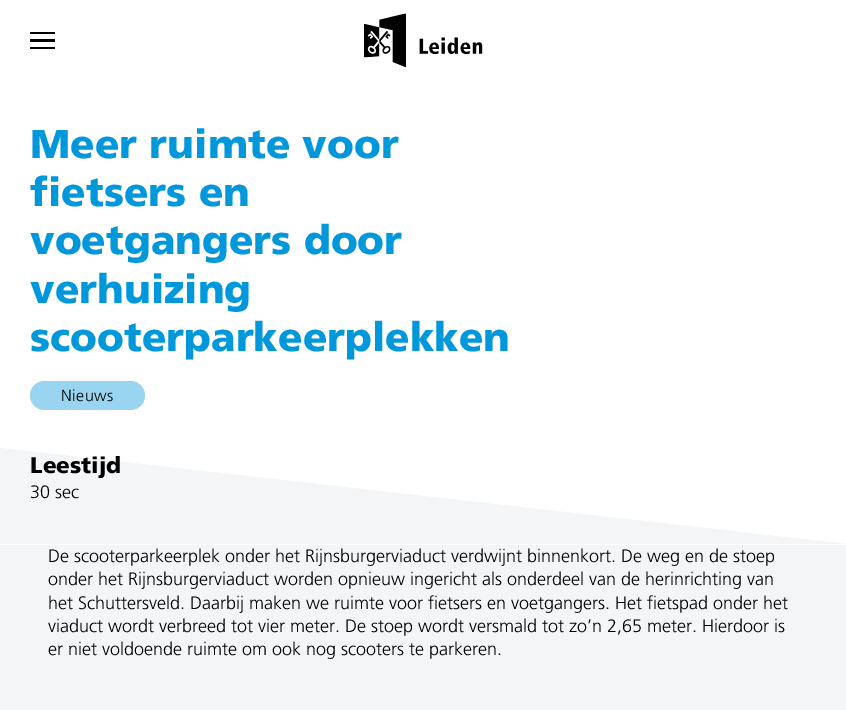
%!PS
<< /PageSize [846 710] >> setpagedevice
/m/moveto load def
/l/rlineto load def
/z/closepath load def
/f/fill load def
/C { dup -16 bitshift 255 div exch dup -8 bitshift 255 and 255 div exch 255 and 255 div setrgbcolor } def
/F { [ exch dup neg 0 0 3 -1 roll 0 0 ] selectfont } def
/T { moveto show } def
/R { rectfill } def
/Q { 5 dict begin { /r /h /w /y /x } { exch def } forall
  x r add y moveto x w add y 2 copy h add r arct x w add y h add x 1 index r arct
  x y h add x y r arct x y 2 copy exch w add exch r arct closepath end } def
/I { 5 dict begin { /h /w /y /x /name } { exch def } forall
  gsave x y translate w h scale
  w h 8 [w 0 0 h 0 0] name (r) file false 3 colorimage grestore end } def
0 710 translate 1 -1 scale
4 setmiterlimit
16#FFFFFF C
0 0 846 710 R
16#000000 C
30 32 25 2 R
30 39 25 3 R
30 47 25 2 R
(1.rgb) 364 13 119 55 I
16#F3F5F7 C
846 544 m -846 -96 l 0 96 l z f
/Frutiger-Black 40.2 F
16#0097DB C
(Meer ruimte voor) 30 158 T
(fietsers en) 30 206 T
(voetgangers door) 30 254 T
(verhuizing) 30 303 T
(scooterparkeerplekken) 30 351 T
16#99D5F1 C
30 381 115 29 14.5 Q f
/Frutiger-Light 16 F
16#000000 C
61 401 m .5 0 (Nieuws) ashow
/Frutiger-Black 22.5 F
(Leestijd) 30 473 T
/Frutiger-Light 18 F
(30 sec) 30 498 T
16#F3F5F7 C
0 545 846 165 R
16#000000 C
(De scooterparkeerplek onder het Rijnsburgerviaduct verdwijnt binnenkort. De weg en de stoep) 48 562 T
(onder het Rijnsburgerviaduct worden opnieuw ingericht als onderdeel van de herinrichting van) 48 585 T
(het Schuttersveld. Daarbij maken we ruimte voor fietsers en voetgangers. Het fietspad onder het) 48 609 T
(viaduct wordt verbreed tot vier meter. De stoep wordt versmald tot zo’n 2,65 meter. Hierdoor is) 48 632 T
(er niet voldoende ruimte om ook nog scooters te parkeren.) 48 655 T
showpage
